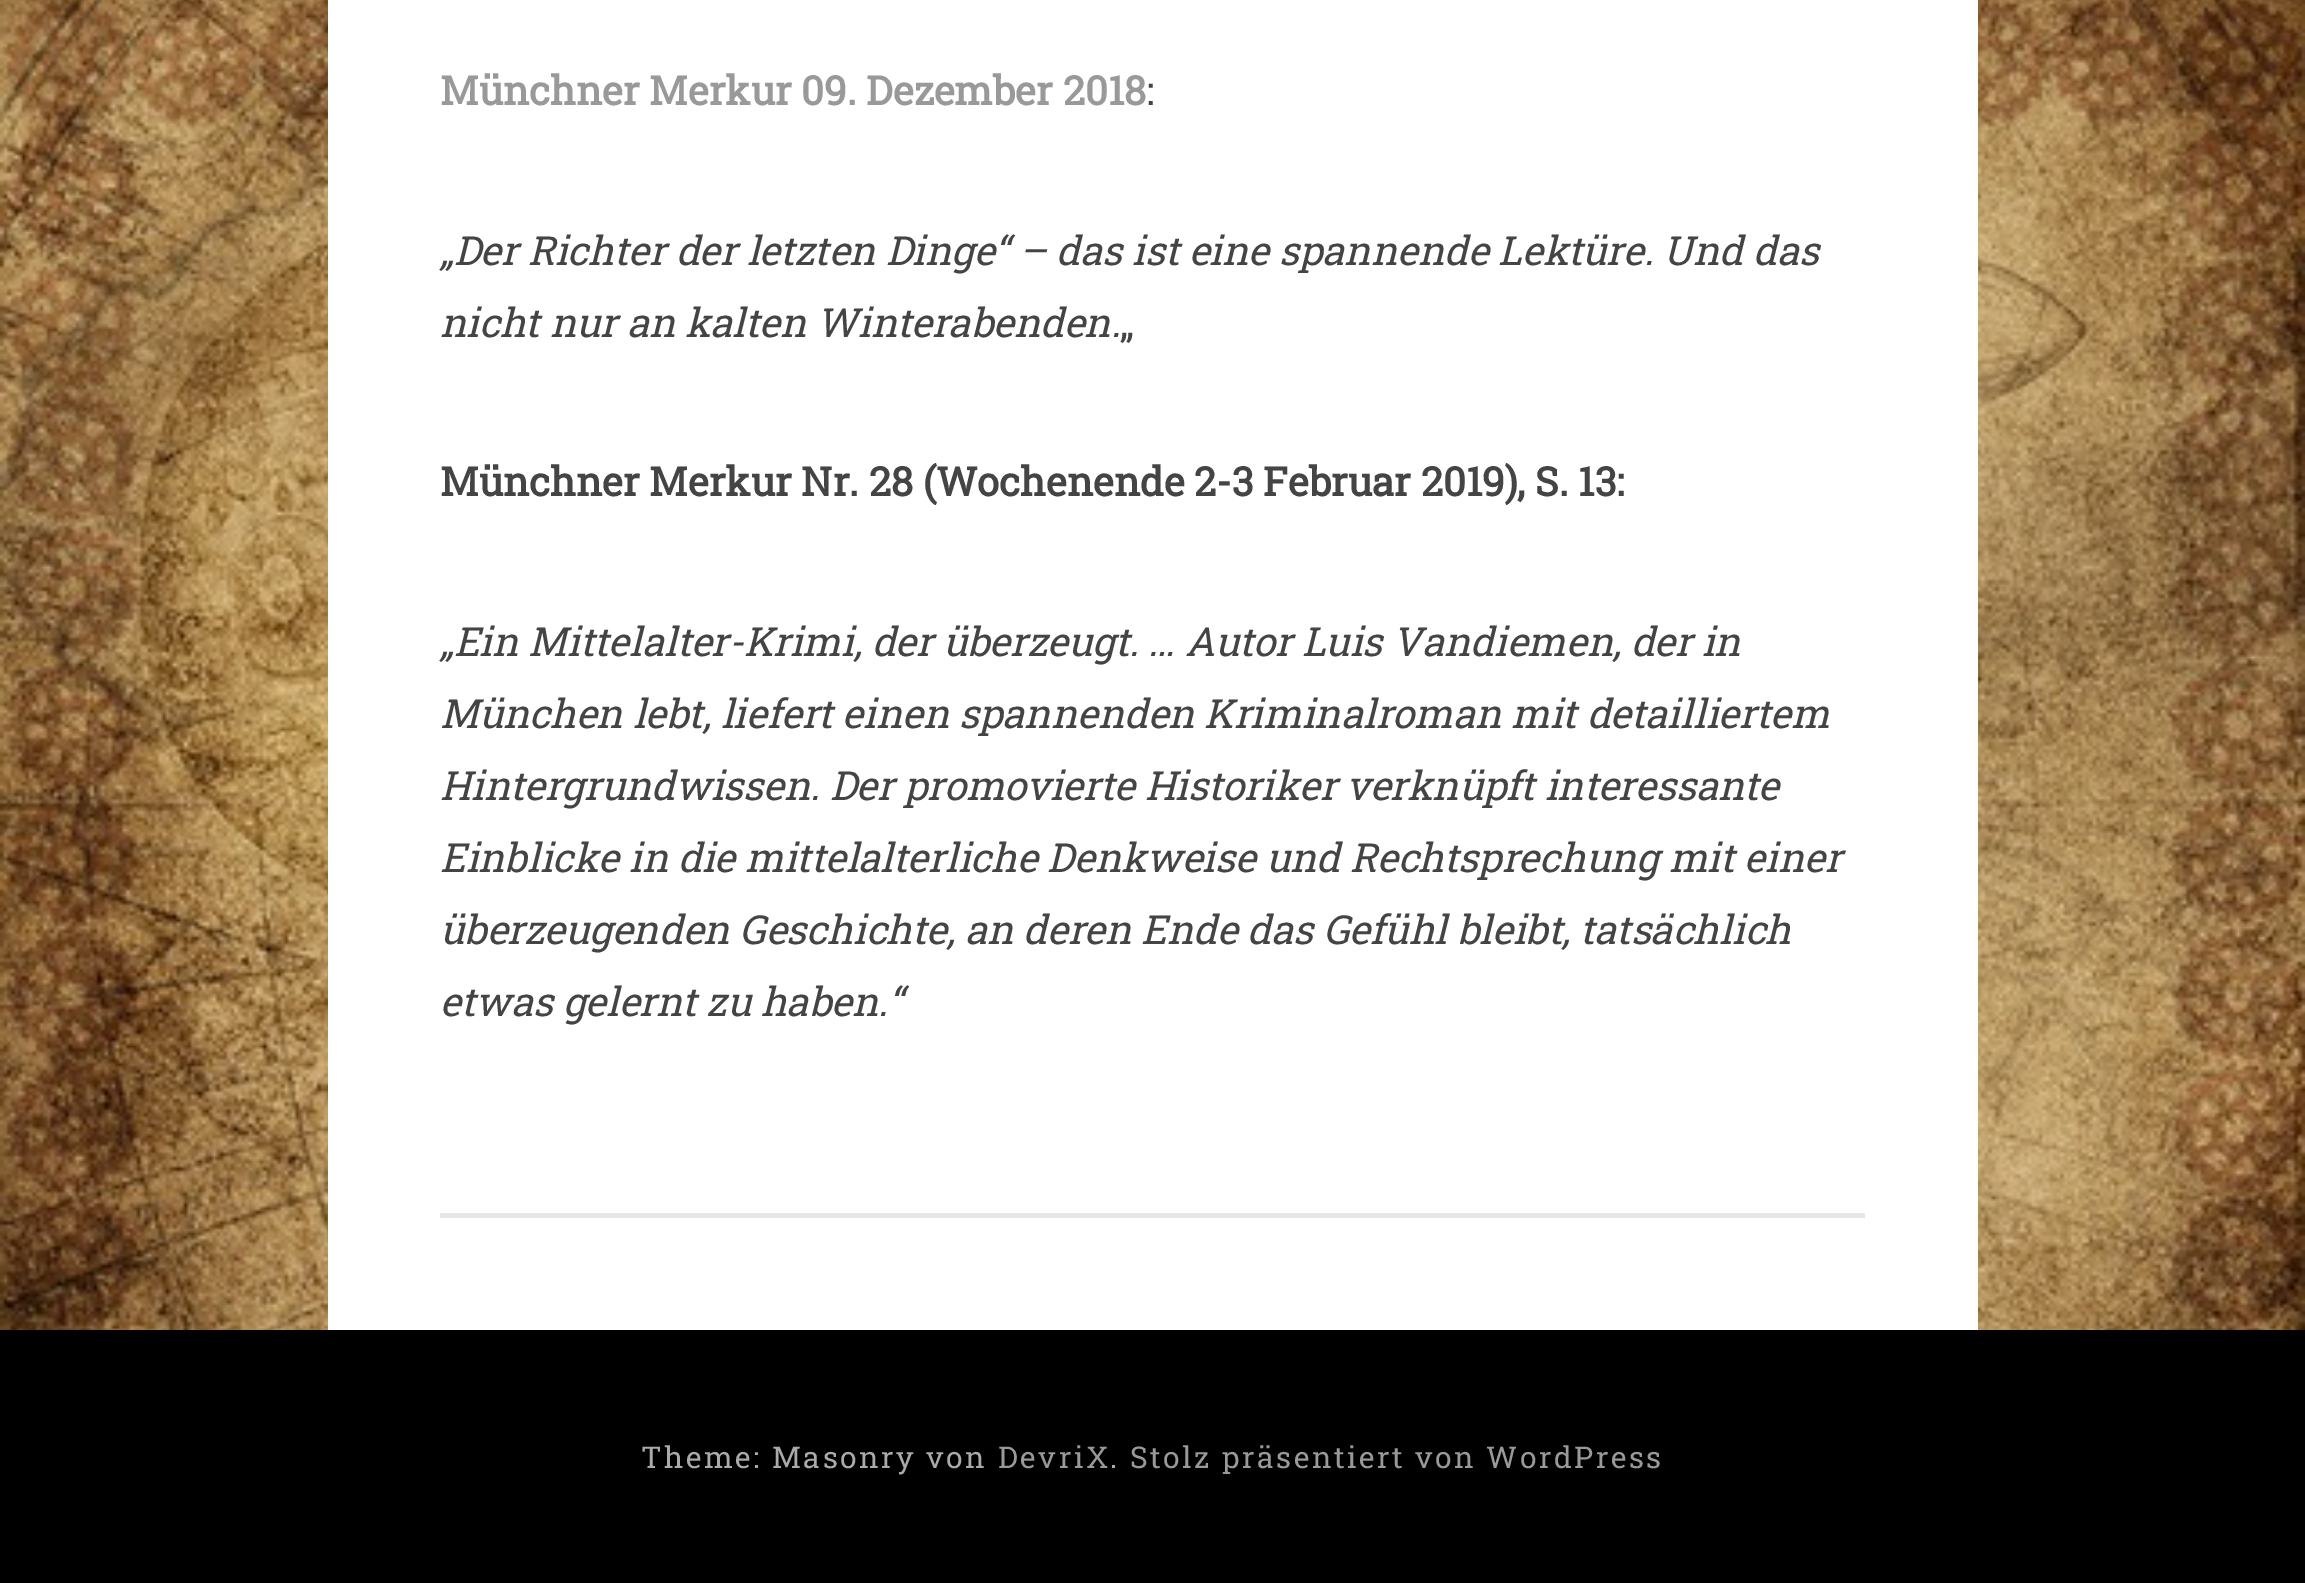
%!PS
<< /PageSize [2305 1583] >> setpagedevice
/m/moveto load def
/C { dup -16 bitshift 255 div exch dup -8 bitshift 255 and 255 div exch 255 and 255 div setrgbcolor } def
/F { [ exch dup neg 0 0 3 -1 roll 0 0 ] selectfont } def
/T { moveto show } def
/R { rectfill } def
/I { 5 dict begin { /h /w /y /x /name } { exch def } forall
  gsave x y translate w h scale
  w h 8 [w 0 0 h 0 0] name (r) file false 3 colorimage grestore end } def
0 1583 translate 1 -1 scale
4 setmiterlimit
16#FFFFFF C
0 0 2305 1583 R
(1.rgb) 0 0 2305 1330 I
328 0 1650 1330 R
/RobotoSlab-Bold 40 F
16#999999 C
(Münchner Merkur 09. Dezember 2018) 440 105 T
/RobotoSlab-Regular 40 F
16#444444 C
(:) 1146 105 T
/RobotoSlab-Italic 40 F
(„Der Richter der letzten Dinge“ – das ist eine spannende Lektüre. Und das) 440 265 T
(nicht nur an kalten Winterabenden.) 440 337 T
/RobotoSlab-Regular 40 F
(„) 1120 337 T
/RobotoSlab-Bold 40 F
(Münchner Merkur Nr. 28 \(Wochenende 2-3 Februar 2019\), S. 13:) 440 496 T
/RobotoSlab-Italic 40 F
(„Ein Mittelalter-Krimi, der überzeugt. … Autor Luis Vandiemen, der in) 440 656 T
(München lebt, liefert einen spannenden Kriminalroman mit detailliertem) 440 728 T
(Hintergrundwissen. Der promovierte Historiker verknüpft interessante) 440 800 T
(Einblicke in die mittelalterliche Denkweise und Rechtsprechung mit einer) 440 872 T
(überzeugenden Geschichte, an deren Ende das Gefühl bleibt, tatsächlich) 440 944 T
(etwas gelernt zu haben.“) 440 1016 T
16#E6E6E6 C
440 1213 1425 5 R
16#000000 C
0 1330 2305 253 R
/RobotoSlab-Regular 30 F
16#AAAAAA C
641 1468 m 2.5 0 (Theme: Masonry von) ashow
16#999999 C
998 1468 m 2.5 0 (DevriX) ashow
16#AAAAAA C
1110 1468 m 2.5 0 (.) ashow
16#999999 C
1130 1468 m 2.5 0 (Stolz präsentiert von WordPress) ashow
showpage
